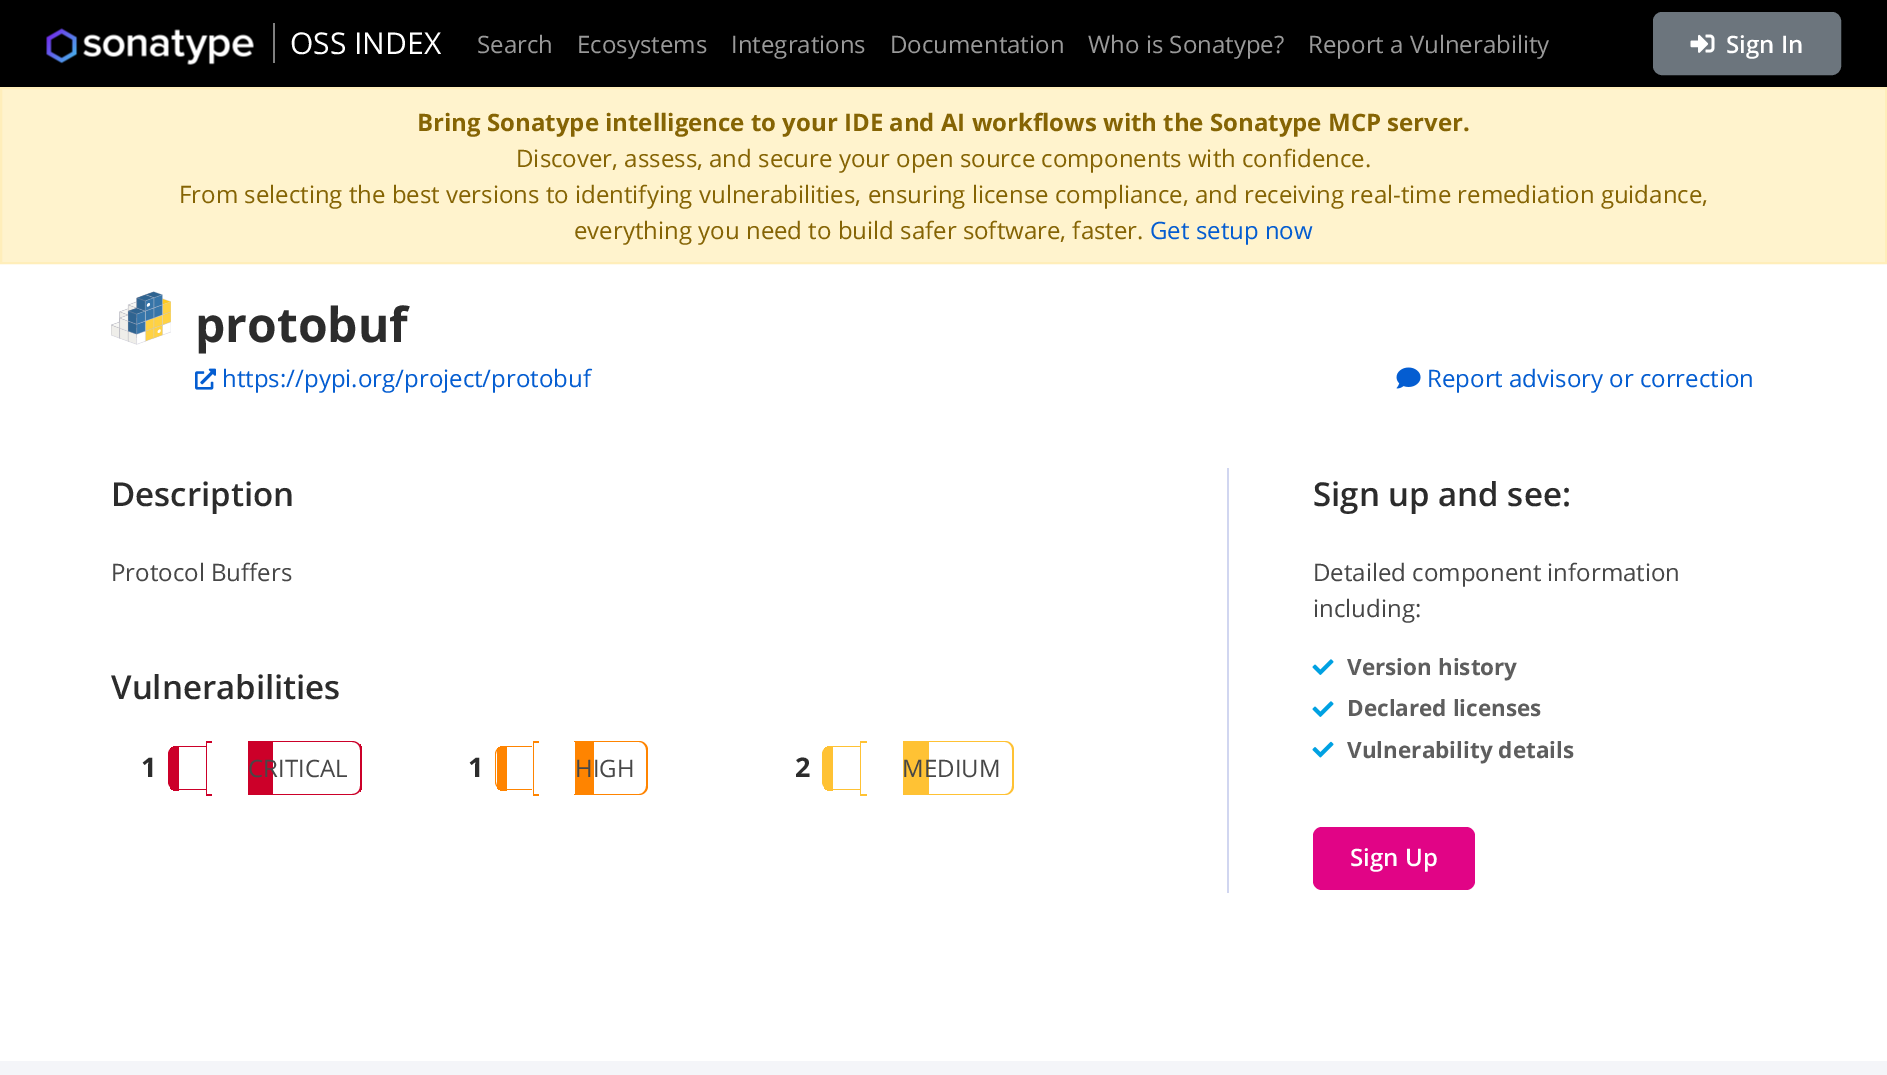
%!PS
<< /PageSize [1887 1075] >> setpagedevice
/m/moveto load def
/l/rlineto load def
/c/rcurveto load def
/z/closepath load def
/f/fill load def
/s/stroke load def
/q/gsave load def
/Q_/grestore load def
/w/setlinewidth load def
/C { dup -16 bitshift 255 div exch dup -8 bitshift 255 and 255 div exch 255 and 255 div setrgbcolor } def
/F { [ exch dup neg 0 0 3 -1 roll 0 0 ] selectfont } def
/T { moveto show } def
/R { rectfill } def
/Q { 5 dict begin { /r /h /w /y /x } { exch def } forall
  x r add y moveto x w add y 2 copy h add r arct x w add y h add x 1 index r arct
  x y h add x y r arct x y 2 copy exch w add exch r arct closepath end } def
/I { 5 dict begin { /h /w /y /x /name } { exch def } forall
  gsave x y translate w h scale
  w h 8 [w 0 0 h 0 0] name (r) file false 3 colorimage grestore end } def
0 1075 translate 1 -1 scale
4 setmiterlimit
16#FFFFFF C
0 0 1887 1075 R
16#000000 C
0 0 1887 87 R
(1.rgb) 46 28 208 37 I
/OpenSans-Regular 30 F
16#FFFFFF C
(OSS INDEX) 290 54 T
16#808080 C
273 23 2 40 R
/OpenSans-Regular 24 F
16#999999 C
(Search) 477 53 T
(Ecosystems) 577 53 T
(Integrations) 731 53 T
(Documentation) 890 53 T
(Who is Sonatype?) 1088 53 T
(Report a Vulnerability) 1308 53 T
16#6C757D C
1654 13 186 61 8 Q q f Q_
2 w
s
(2.rgb) 1690 34 25 19 I
/OpenSans-SemiBold 24 F
16#FFFFFF C
(Sign In) 1726 53 T
16#FFF3CD C
1 88 m 1885 0 l 0 175 l -1885 0 l z q f Q_
16#FFEEBA C
s
/OpenSans-Bold 24 F
16#856404 C
(Bring Sonatype intelligence to your IDE and AI workflows with the Sonatype MCP server.) 417 131 T
/OpenSans-Regular 24 F
(Discover, assess, and secure your open source components with confidence.) 516 167 T
(From selecting the best versions to identifying vulnerabilities, ensuring license compliance, and receiving real-time remediation guidance,) 179 203 T
(everything you need to build safer software, faster.) 574 239 T
16#045DD1 C
(Get setup now) 1150 239 T
(3.rgb) 111 291 60 54 I
/OpenSans-Bold 48 F
16#2C2C2C C
(protobuf) 195 342 T
(4.rgb) 195 368 21 22 I
/OpenSans-Regular 24 F
16#045DD1 C
(https://pypi.org/project/protobuf) 222 387 T
(5.rgb) 1396 367 25 22 I
(Report advisory or correction) 1427 387 T
16#D1D6F0 C
1227 468 2 425 R
/OpenSans-SemiBold 33 F
16#2C2C2C C
(Description) 111 506 T
/OpenSans-Regular 24 F
16#474747 C
(Protocol Buffers) 111 581 T
/OpenSans-SemiBold 33 F
16#2C2C2C C
(Vulnerabilities) 111 699 T
/OpenSans-Bold 27 F
(1) 141 777 T
16#CC0029 C
248 742 25 52 R
q
248 741 m 105 0 l 5 0 9 4 9 9 c 0 36 l 0 5 -4 9 -9 9 c -105 0 l z clip newpath
360 741 2 54 R
Q_
248 741 m 104 0 l 5 0 10 4 10 9 c 0 36 l 0 5 -5 9 -10 9 c -104 0 l z 248 742 m 104 0 l 5 0 8 4 8 8 c 0 36 l 0 4 -3 8 -8 8 c -104 0 l z eofill
/OpenSans-Regular 24 F
16#474747 C
(CRITICAL) 248 777 T
q
177 746 m 29 0 l 0 45 l -29 0 l -5 0 -9 -4 -9 -9 c 0 -27 l 0 -5 4 -9 9 -9 c z clip newpath
16#CC0029 C
170 746 9 45 R
Q_
16#CC0029 C
177 746 m 29 0 l 0 44 l -29 0 l -5 0 -9 -4 -9 -8 c 0 -28 l 0 -4 4 -8 9 -8 c z 177 747 m 29 0 l 0 42 l -29 0 l -4 0 -7 -3 -7 -7 c 0 -28 l 0 -4 3 -7 7 -7 c z eofill
206 741 1 54 R
206 741 6 2 R
206 794 6 2 R
/OpenSans-Bold 27 F
16#2C2C2C C
(1) 468 777 T
16#FF8400 C
575 742 19 52 R
574 741 m 65 0 l 5 0 9 4 9 9 c 0 36 l 0 5 -4 9 -9 9 c -65 0 l z 574 742 m 65 0 l 4 0 7 4 7 8 c 0 36 l 0 4 -3 8 -7 8 c -65 0 l z eofill
/OpenSans-Regular 24 F
16#474747 C
(HIGH) 575 777 T
q
504 746 m 29 0 l 0 45 l -29 0 l -5 0 -9 -4 -9 -9 c 0 -27 l 0 -5 4 -9 9 -9 c z clip newpath
16#FF8400 C
497 746 10 45 R
Q_
16#FF8400 C
504 746 m 28 0 l 0 44 l -28 0 l -5 0 -9 -4 -9 -8 c 0 -28 l 0 -4 4 -8 9 -8 c z 504 747 m 28 0 l 0 42 l -28 0 l -4 0 -8 -3 -8 -7 c 0 -28 l 0 -4 4 -7 8 -7 c z eofill
533 741 1 54 R
533 741 6 2 R
533 794 6 2 R
/OpenSans-Bold 27 F
16#2C2C2C C
(2) 795 777 T
16#FFC234 C
903 742 26 52 R
903 741 m 102 0 l 5 0 9 4 9 9 c 0 36 l 0 5 -4 9 -9 9 c -102 0 l z 903 742 m 102 0 l 4 0 7 4 7 8 c 0 36 l 0 4 -3 8 -7 8 c -102 0 l z eofill
/OpenSans-Regular 24 F
16#474747 C
(MEDIUM) 902 777 T
q
831 746 m 29 0 l 0 45 l -29 0 l -5 0 -9 -4 -9 -9 c 0 -27 l 0 -5 4 -9 9 -9 c z clip newpath
16#FFC234 C
824 746 9 45 R
Q_
16#FFC234 C
831 746 m 29 0 l 0 44 l -29 0 l -5 0 -9 -4 -9 -8 c 0 -28 l 0 -4 4 -8 9 -8 c z 831 747 m 29 0 l 0 42 l -29 0 l -4 0 -7 -3 -7 -7 c 0 -28 l 0 -4 3 -7 7 -7 c z eofill
860 741 1 54 R
860 741 7 2 R
860 794 7 2 R
/OpenSans-SemiBold 33 F
16#2C2C2C C
(Sign up and see:) 1313 506 T
/OpenSans-Regular 24 F
16#474747 C
(Detailed component information) 1313 581 T
(including:) 1313 617 T
(6.rgb) 1312 659 22 16 I
/OpenSans-Bold 22.5 F
16#5E5E5E C
(Version history) 1347 675 T
(6.rgb) 1312 701 22 16 I
(Declared licenses) 1347 716 T
(7.rgb) 1312 741 22 17 I
(Vulnerability details) 1347 758 T
16#E10486 C
1313 827 162 63 9 Q f
/OpenSans-SemiBold 24 F
16#FFFFFF C
(Sign Up) 1350 866 T
16#F4F5F9 C
0 1061 1887 14 R
showpage
